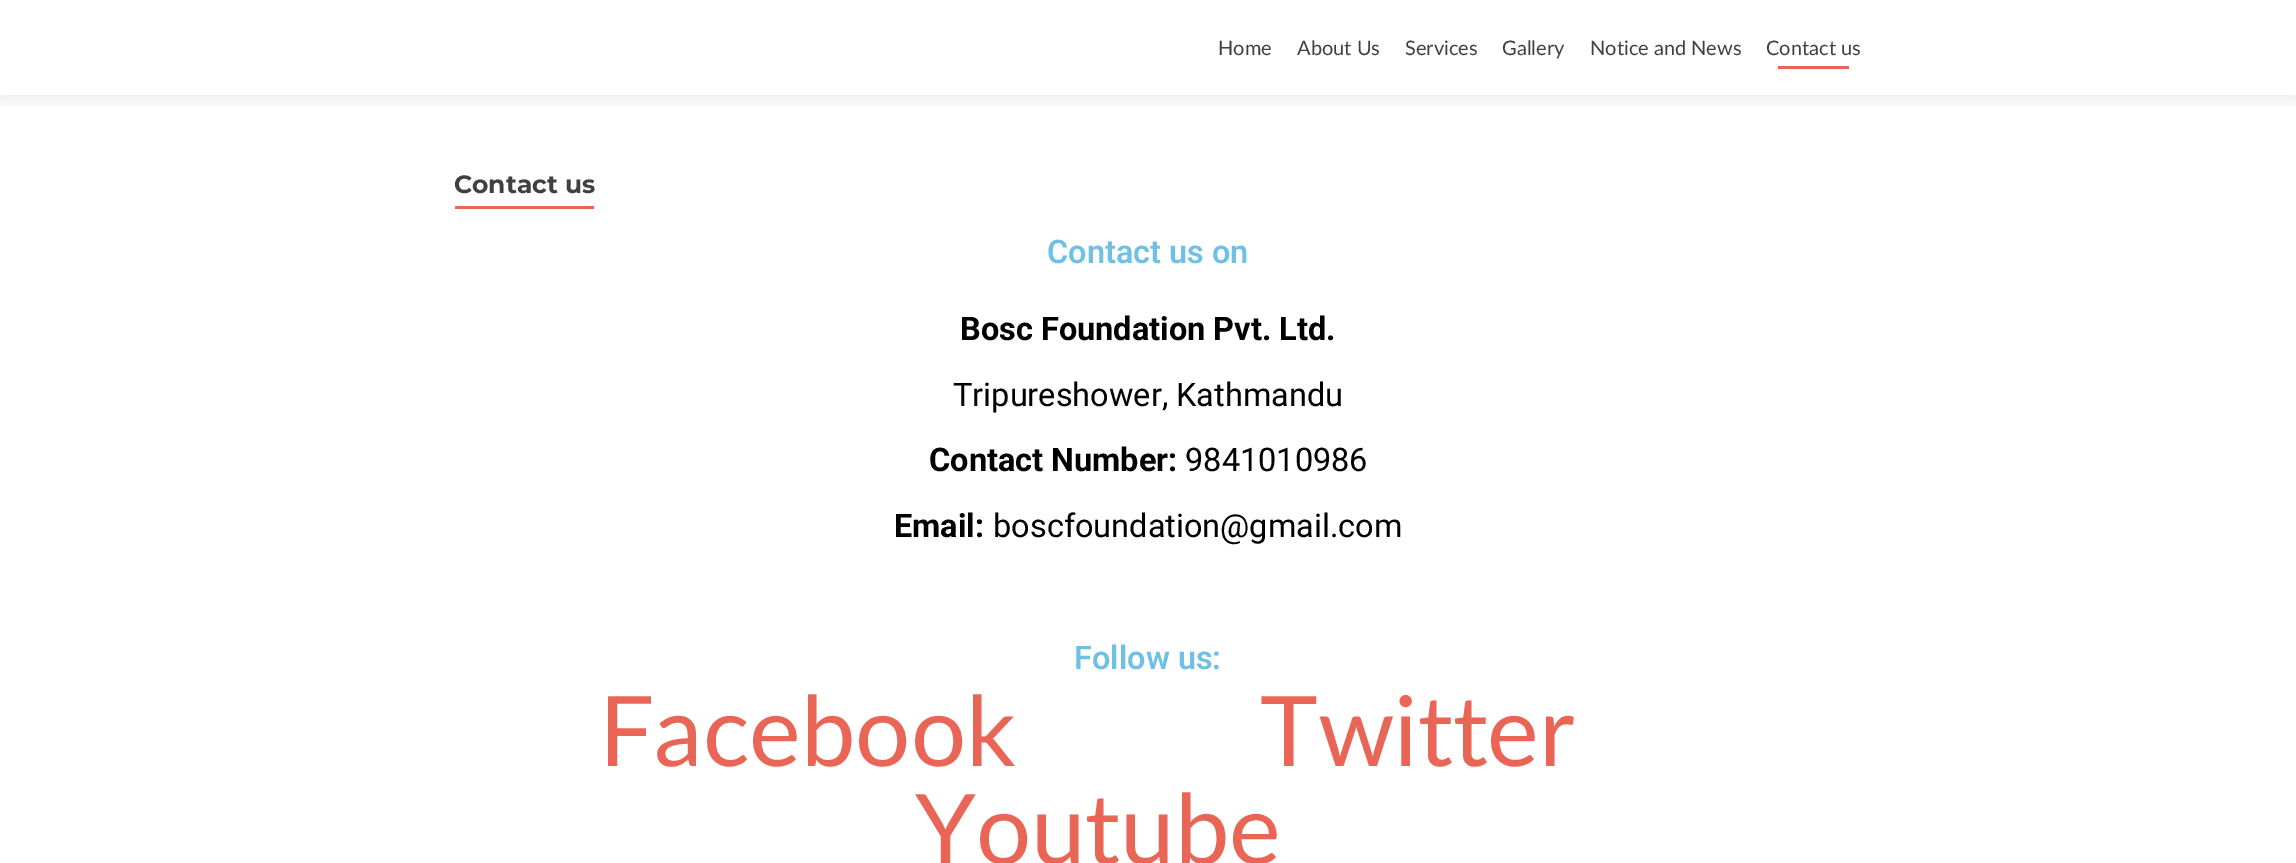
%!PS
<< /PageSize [2296 863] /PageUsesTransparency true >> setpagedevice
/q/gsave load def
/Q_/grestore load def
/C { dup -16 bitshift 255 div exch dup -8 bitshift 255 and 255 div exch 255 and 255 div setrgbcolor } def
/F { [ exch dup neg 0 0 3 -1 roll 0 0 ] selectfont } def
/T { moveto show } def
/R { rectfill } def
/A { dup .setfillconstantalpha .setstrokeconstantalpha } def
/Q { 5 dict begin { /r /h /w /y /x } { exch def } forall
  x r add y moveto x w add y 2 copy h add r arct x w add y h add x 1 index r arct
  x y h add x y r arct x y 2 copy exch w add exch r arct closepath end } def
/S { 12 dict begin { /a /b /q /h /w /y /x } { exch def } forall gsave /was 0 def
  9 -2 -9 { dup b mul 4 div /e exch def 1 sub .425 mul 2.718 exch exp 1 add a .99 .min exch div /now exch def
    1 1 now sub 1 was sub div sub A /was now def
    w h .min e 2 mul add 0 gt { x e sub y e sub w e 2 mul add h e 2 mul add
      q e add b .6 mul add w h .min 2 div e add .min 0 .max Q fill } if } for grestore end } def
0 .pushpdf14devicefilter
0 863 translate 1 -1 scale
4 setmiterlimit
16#FFFFFF C
0 0 2296 863 R
q
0 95 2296 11 rectclip
16#323232 C
0 6 2296 95 0 7 .08 S
Q_
/Lato-Regular 20 F
16#404040 C
(Home) 1218 55 T
(About Us) 1297 55 T
(Services) 1405 55 T
(Gallery) 1502 55 T
(Notice and News) 1590 55 T
(Contact us) 1766 55 T
16#E96656 C
1778 66 71 3 R
/Montserrat-Bold 25 F
16#404040 C
(Contact us) 454 193 T
16#E96656 C
455 206 139 3 R
/Roboto-SemiBold 32.5 F
16#6EC1E4 C
(Contact us on) 1047 263 T
/Roboto-Bold 32.5 F
16#000000 C
(Bosc Foundation Pvt. Ltd.) 960 340 T
/Roboto-Regular 32.5 F
(Tripureshower, Kathmandu) 953 406 T
/Roboto-Bold 32.5 F
(Contact Number:) 929 471 T
/Roboto-Regular 32.5 F
(9841010986) 1185 471 T
/Roboto-Bold 32.5 F
(Email:) 894 537 T
/Roboto-Regular 32.5 F
(boscfoundation@gmail.com) 993 537 T
/Roboto-SemiBold 32.5 F
16#6EC1E4 C
(Follow us:) 1074 669 T
/Lato-Regular 97.5 F
16#E96656 C
(Facebook) 599 766 T
(Twitter) 1260 766 T
(Youtube) 915 864 T
.poppdf14devicefilter showpage
